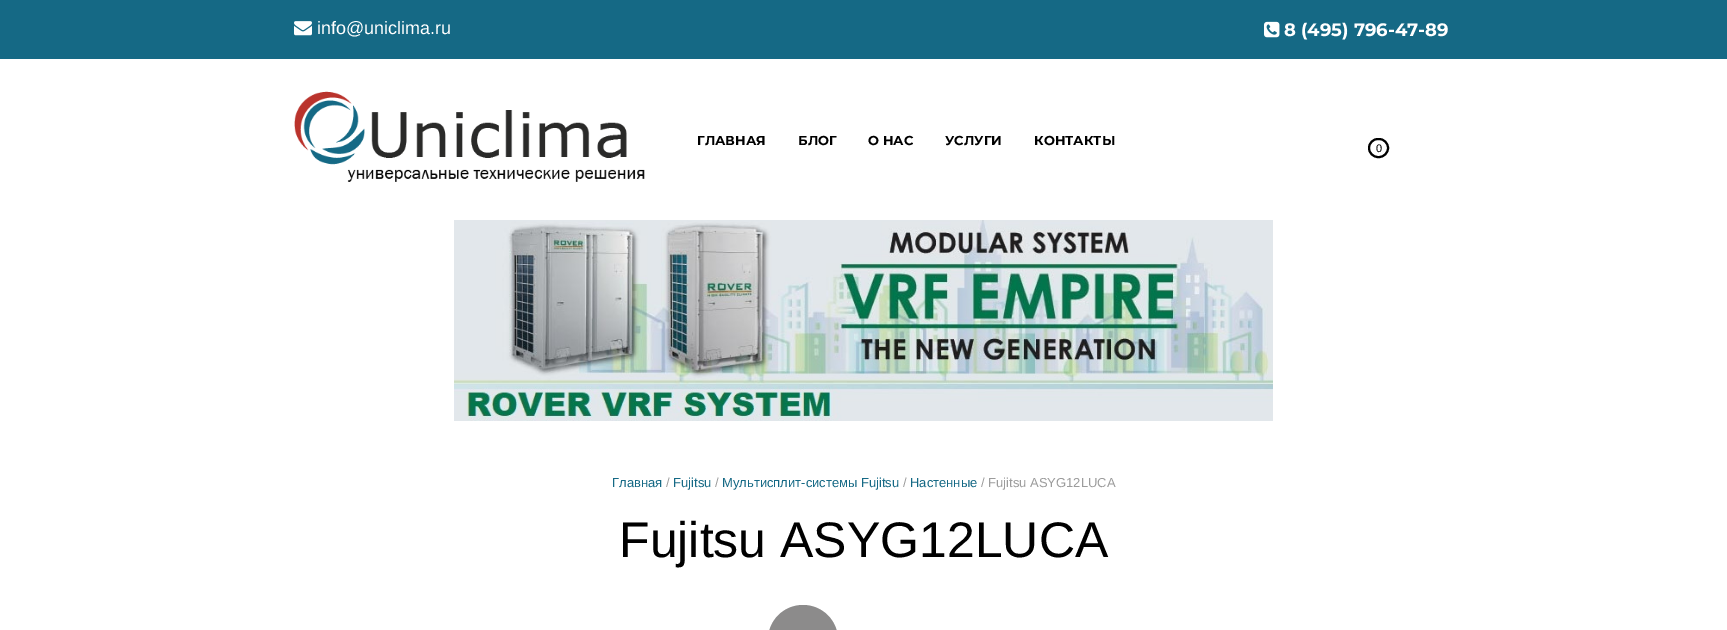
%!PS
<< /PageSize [1727 630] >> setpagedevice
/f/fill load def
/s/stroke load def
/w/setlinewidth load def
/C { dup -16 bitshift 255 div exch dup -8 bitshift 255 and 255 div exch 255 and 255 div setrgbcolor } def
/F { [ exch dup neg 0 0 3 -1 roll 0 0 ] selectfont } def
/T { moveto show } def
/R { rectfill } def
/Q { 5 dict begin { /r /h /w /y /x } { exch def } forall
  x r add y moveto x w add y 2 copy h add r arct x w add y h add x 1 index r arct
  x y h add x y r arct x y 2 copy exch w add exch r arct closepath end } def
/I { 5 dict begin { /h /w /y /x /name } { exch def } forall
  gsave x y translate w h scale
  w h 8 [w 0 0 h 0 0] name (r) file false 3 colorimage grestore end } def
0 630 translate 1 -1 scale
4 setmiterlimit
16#FFFFFF C
0 0 1727 630 R
16#156985 C
0 0 1727 59 R
(1.rgb) 294 21 18 15 I
/Arimo-Regular 18 F
16#FFFFFF C
(info@uniclima.ru) 317 34 T
(2.rgb) 1264 21 16 17 I
/Montserrat-Bold 18 F
(8 \(495\) 796-47-89) 1284 36 T
(3.rgb) 294 91 351 91 I
/Montserrat-Bold 13 F
16#000000 C
(ГЛАВНАЯ) 697 145 T
(БЛОГ) 798 145 T
(О НАС) 868 145 T
(УСЛУГИ) 945 145 T
(КОНТАКТЫ) 1034 145 T
2 w
1369 139 19 18 9 Q s
/Arimo-Regular 11 F
(0) 1376 152 T
(4.rgb) 454 220 819 201 I
/Arimo-Regular 13 F
16#156985 C
(Главная) 612 487 T
16#9C9C9C C
(/) 666 487 T
16#156985 C
(Fujitsu) 673 487 T
16#9C9C9C C
(/) 715 487 T
16#156985 C
(Мультисплит-системы Fujitsu) 722 487 T
16#9C9C9C C
(/) 903 487 T
16#156985 C
(Настенные) 910 487 T
16#9C9C9C C
(/ Fujitsu ASYG12LUCA) 981 487 T
/Arimo-Regular 50 F
16#000000 C
(Fujitsu ASYG12LUCA) 619 557 T
16#8C8B8B C
768 605 70 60 35 Q f
showpage
